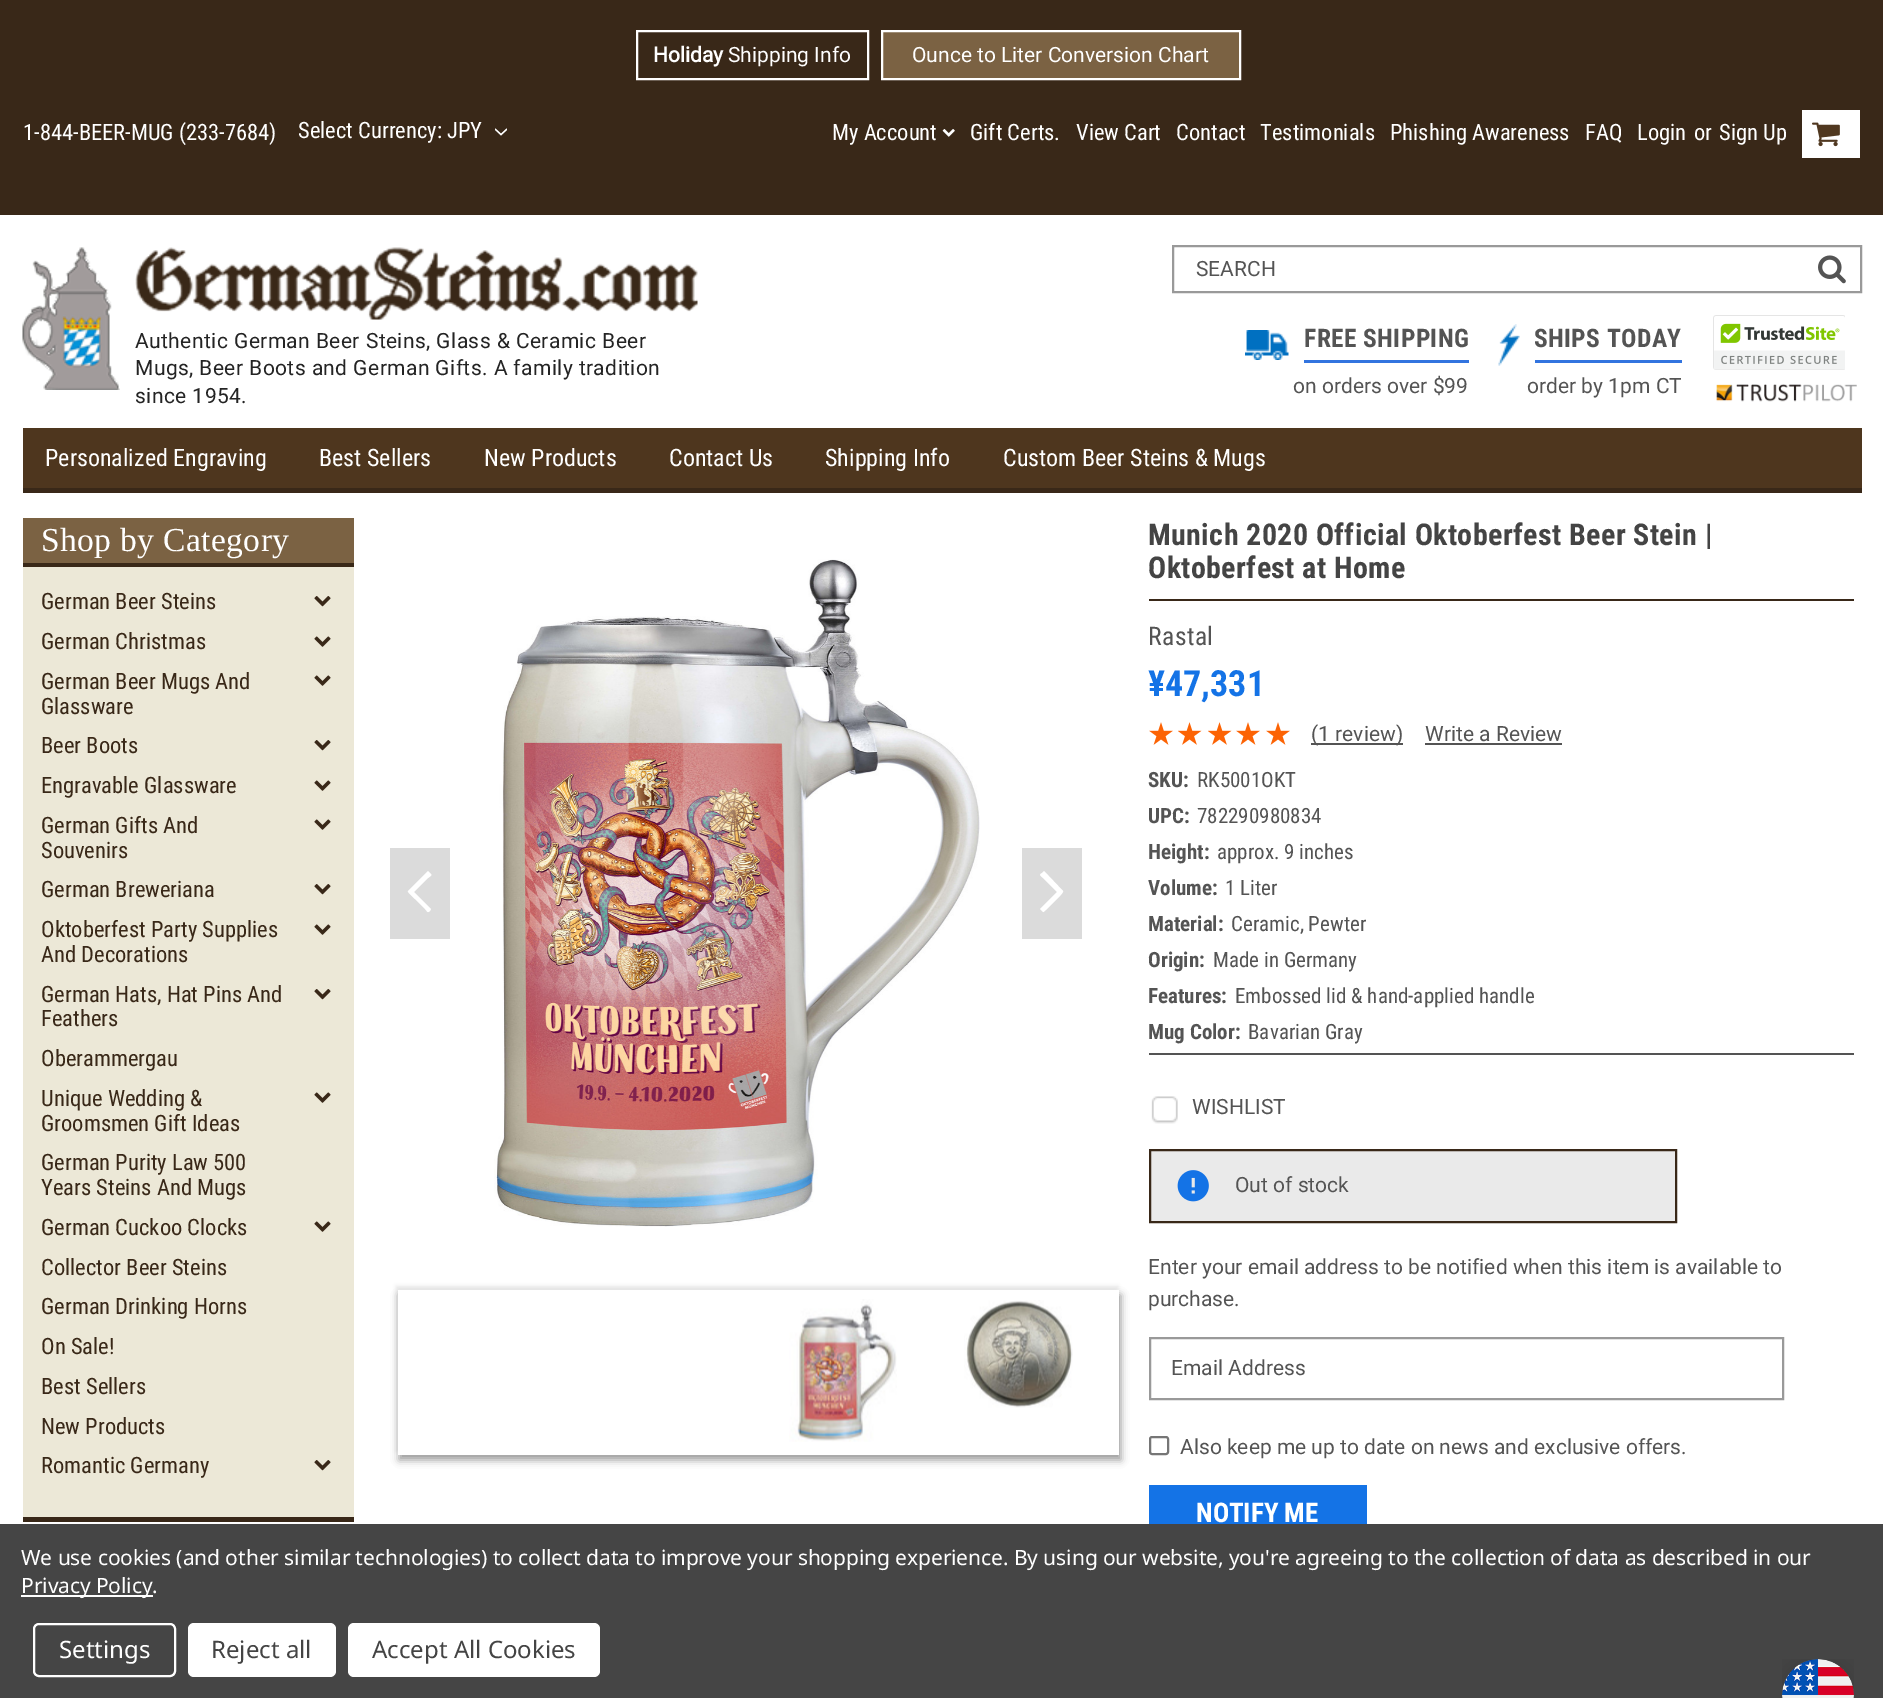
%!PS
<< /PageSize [1883 1698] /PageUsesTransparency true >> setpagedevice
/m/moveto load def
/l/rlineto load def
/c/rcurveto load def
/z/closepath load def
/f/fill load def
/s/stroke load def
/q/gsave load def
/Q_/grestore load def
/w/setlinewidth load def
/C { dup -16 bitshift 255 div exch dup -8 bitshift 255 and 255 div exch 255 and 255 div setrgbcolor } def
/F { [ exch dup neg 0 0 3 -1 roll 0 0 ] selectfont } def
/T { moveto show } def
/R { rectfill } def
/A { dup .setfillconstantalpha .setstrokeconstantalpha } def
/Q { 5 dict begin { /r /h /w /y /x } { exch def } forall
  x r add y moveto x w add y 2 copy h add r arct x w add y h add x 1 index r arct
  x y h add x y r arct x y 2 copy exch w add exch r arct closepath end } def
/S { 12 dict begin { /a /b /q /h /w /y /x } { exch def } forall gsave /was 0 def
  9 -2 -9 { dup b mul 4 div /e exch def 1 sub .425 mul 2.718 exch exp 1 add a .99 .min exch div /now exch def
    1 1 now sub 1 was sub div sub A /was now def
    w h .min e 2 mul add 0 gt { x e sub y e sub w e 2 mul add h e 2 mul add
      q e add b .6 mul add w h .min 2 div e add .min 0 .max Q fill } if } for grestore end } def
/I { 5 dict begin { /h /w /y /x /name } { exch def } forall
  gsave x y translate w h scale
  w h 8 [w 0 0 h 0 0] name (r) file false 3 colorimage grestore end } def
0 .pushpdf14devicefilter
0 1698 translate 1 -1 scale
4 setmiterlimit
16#FFFFFF C
0 0 1883 1698 R
16#392818 C
0 0 1883 215 R
16#FFFFFF C
2 w
637 31 231 48 rectstroke
/Roboto-Bold 21 F
(Holiday) 653 62 T
/Roboto-Regular 21 F
(Shipping Info) 728 62 T
16#7B6243 C
882 31 m 358 0 l 0 48 l -358 0 l z q f Q_
16#FFFFFF C
s
(Ounce to Liter Conversion Chart) 912 62 T
/RobotoCondensed-Regular 22.5 F
(1-844-BEER-MUG \(233-7684\)) 23 140 T
(Select Currency: JPY) 298 138 T
(1.rgb) 495 128 12 8 I
(My Account) 832 140 T
(2.rgb) 942 129 13 8 I
(Gift Certs.) 970 140 T
(View Cart) 1076 140 T
(Contact) 1176 140 T
(Testimonials) 1260 140 T
(Phishing Awareness) 1390 140 T
(FAQ) 1585 140 T
(Login) 1637 140 T
(or) 1694 140 T
(Sign Up) 1719 140 T
1802 110 58 48 R
(3.rgb) 1812 122 28 25 I
(4.rgb) 22 247 98 143 I
(5.rgb) 135 247 563 73 I
/Roboto-Regular 21 F
16#242424 C
135 348 m .42 0 (Authentic German Beer Steins, Glass & Ceramic Beer) ashow
135 375 m .42 0 (Mugs, Beer Boots and German Gifts. A family tradition) ashow
135 403 m .42 0 (since 1954.) ashow
16#999999 C
1173 246 688 46 rectstroke
16#545454 C
(SEARCH) 1196 276 T
(6.rgb) 1818 255 28 29 I
(7.rgb) 1245 330 44 30 I
16#3274DF C
1304 360 165 3 R
/RobotoCondensed-Bold 25.5 F
16#545454 C
1304 347 m .4 0 (FREE SHIPPING) ashow
/Roboto-Regular 21 F
(on orders over $99) 1293 393 T
(8.rgb) 1498 324 22 42 I
16#3274DF C
1535 360 147 3 R
/RobotoCondensed-Bold 25.5 F
16#545454 C
1534 347 m .4 0 (SHIPS TODAY) ashow
/Roboto-Regular 21 F
(order by 1pm CT) 1527 393 T
(9.rgb) 1713 315 132 55 I
(10.rgb) 1716 384 141 18 I
16#4E361E C
23 428 1839 60 R
16#392818 C
23 488 1839 5 R
/RobotoCondensed-Regular 24 F
16#FFFFFF C
(Personalized Engraving) 45 466 T
(Best Sellers) 319 466 T
(New Products) 484 466 T
(Contact Us) 669 466 T
(Shipping Info) 825 466 T
(Custom Beer Steins & Mugs) 1003 466 T
16#392818 C
23 1517 331 5 R
16#7B6243 C
23 518 331 45 R
16#392818 C
23 563 331 4 R
/LiberationSerif-Regular 33.5 F
16#FFFFFF C
41 551 m .4 0 (Shop by Category) ashow
16#ECE8D7 C
23 567 331 950 R
/RobotoCondensed-Regular 22.5 F
16#392818 C
(German Beer Steins) 41 609 T
(11.rgb) 314 596 17 11 I
(German Christmas) 41 649 T
(12.rgb) 314 636 17 11 I
(German Beer Mugs And) 41 689 T
(Glassware) 41 714 T
(12.rgb) 314 675 17 11 I
(Beer Boots) 41 753 T
(11.rgb) 314 740 17 11 I
(Engravable Glassware) 41 793 T
(12.rgb) 314 780 17 11 I
(German Gifts And) 41 833 T
(Souvenirs) 41 858 T
(12.rgb) 314 819 17 11 I
(German Breweriana) 41 897 T
(11.rgb) 314 884 17 11 I
(Oktoberfest Party Supplies) 41 937 T
(And Decorations) 41 962 T
(12.rgb) 314 924 17 11 I
(German Hats, Hat Pins And) 41 1002 T
(Feathers) 41 1026 T
(11.rgb) 314 989 17 11 I
(Oberammergau) 41 1066 T
(Unique Wedding &) 41 1106 T
(Groomsmen Gift Ideas) 41 1131 T
(12.rgb) 314 1092 17 11 I
(German Purity Law 500) 41 1170 T
(Years Steins And Mugs) 41 1195 T
(German Cuckoo Clocks) 41 1235 T
(12.rgb) 314 1221 17 11 I
(Collector Beer Steins) 41 1275 T
(German Drinking Horns) 41 1314 T
(On Sale!) 41 1354 T
(Best Sellers) 41 1394 T
(New Products) 41 1434 T
(Romantic Germany) 41 1473 T
(11.rgb) 314 1460 17 11 I
16#DBDBDB C
390 848 60 91 R
16#FFFFFF C
408 891 m -1 1 6 7 7 8 c 10 10 l 3 3 2 4 5 2 c 1 -2 l -17 -17 l 14 -14 l 4 -3 4 -3 2 -5 c -2 -2 l z f
(13.rgb) 494 559 486 668 I
16#DBDBDB C
1022 848 60 91 R
16#FFFFFF C
1063 891 m 1 1 -5 7 -6 8 c -10 10 l -4 3 -3 4 -5 2 c -2 -2 l 17 -17 l -14 -14 l -3 -3 -4 -3 -1 -5 c 2 -2 l z f
q
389 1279 m 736 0 l 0 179 l -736 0 l z 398 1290 m 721 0 l 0 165 l -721 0 l z eoclip newpath
16#EBEBEB C
396 1286 722 165 0 2 1 S
Q_
q
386 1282 m 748 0 l 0 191 l -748 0 l z 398 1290 m 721 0 l 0 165 l -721 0 l z eoclip newpath
16#999999 C
399 1295 722 165 0 4 1 S
Q_
(14.rgb) 789 1299 108 143 I
(15.rgb) 964 1300 109 108 I
16#392818 C
1149 599 705 2 R
/RobotoCondensed-Bold 30 F
16#444444 C
1148 545 m .4 0 (Munich 2020 Official Oktoberfest Beer Stein |) ashow
1148 578 m .4 0 (Oktoberfest at Home) ashow
/RobotoCondensed-Regular 25.5 F
16#545454 C
1148 645 m .4 0 (Rastal) ashow
/RobotoCondensed-Bold 36 F
16#1473E6 C
(¥47,331) 1148 696 T
(16.rgb) 1149 722 24 23 I
(17.rgb) 1178 722 24 23 I
(17.rgb) 1208 722 24 23 I
(16.rgb) 1236 722 24 23 I
(16.rgb) 1266 722 24 23 I
16#545454 C
1311 743 92 2 R
/Roboto-Regular 21 F
(\(1 review\)) 1311 741 T
(Write a Review) 1425 741 T
1425 743 137 2 R
1149 1053 705 2 R
/RobotoCondensed-Bold 21 F
(SKU:) 1148 787 T
/RobotoCondensed-Regular 21 F
(RK5001OKT) 1197 787 T
/RobotoCondensed-Bold 21 F
(UPC:) 1148 823 T
/RobotoCondensed-Regular 21 F
(782290980834) 1197 823 T
/RobotoCondensed-Bold 21 F
(Height:) 1148 859 T
/RobotoCondensed-Regular 21 F
(approx. 9 inches) 1217 859 T
/RobotoCondensed-Bold 21 F
(Volume:) 1148 895 T
/RobotoCondensed-Regular 21 F
(1 Liter) 1225 895 T
/RobotoCondensed-Bold 21 F
(Material:) 1148 931 T
/RobotoCondensed-Regular 21 F
(Ceramic, Pewter) 1231 931 T
/RobotoCondensed-Bold 21 F
(Origin:) 1148 967 T
/RobotoCondensed-Regular 21 F
(Made in Germany) 1213 967 T
/RobotoCondensed-Bold 21 F
(Features:) 1148 1003 T
/RobotoCondensed-Regular 21 F
(Embossed lid & hand-applied handle) 1235 1003 T
/RobotoCondensed-Bold 21 F
(Mug Color:) 1148 1039 T
/RobotoCondensed-Regular 21 F
(Bavarian Gray) 1248 1039 T
(18.rgb) 1151 1096 27 28 I
/Roboto-Regular 21 F
(WISHLIST) 1192 1114 T
16#EAEAEA C
1150 1150 m 526 0 l 0 72 l -526 0 l z q f Q_
16#392818 C
s
(19.rgb) 1177 1170 32 32 I
16#545454 C
(Out of stock) 1235 1192 T
(Enter your email address to be notified when this item is available to) 1148 1274 T
(purchase.) 1148 1306 T
16#999999 C
1150 1338 633 61 rectstroke
16#545454 C
(Email Address) 1171 1375 T
16#767676 C
1150 1437 18 17 2 Q s
16#545454 C
(Also keep me up to date on news and exclusive offers.) 1180 1454 T
16#1473E6 C
1149 1485 218 39 R
/RobotoCondensed-Bold 27 F
16#FFFFFF C
(NOTIFY ME) 1196 1522 T
16#454545 C
0 1524 1883 174 R
/NotoSans-Regular 21 F
16#FFFFFF C
21 1565 m -.08 0 (We use cookies \(and other similar technologies\) to collect data to improve your shopping experience. By using our website, you're agreeing to the collection of data as described in our) ashow
21 1595 132 2 R
21 1593 m -.08 0 (Privacy Policy.) ashow
34 1624 141 52 5 Q s
/NotoSans-Regular 24 F
(Settings) 59 1658 T
188 1623 148 54 6 Q f
16#444444 C
(Reject all) 211 1658 T
16#FFFFFF C
348 1623 252 54 6 Q f
16#444444 C
(Accept All Cookies) 372 1658 T
(20.rgb) 1782 1659 72 39 I
.poppdf14devicefilter showpage
